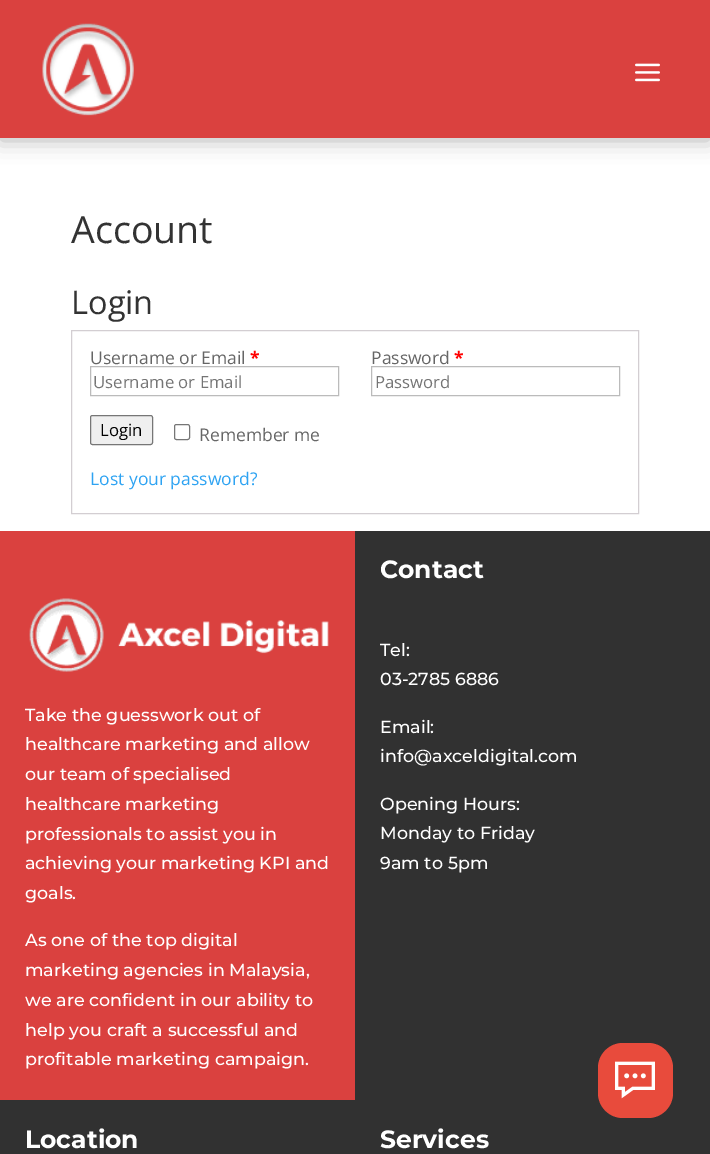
%!PS
<< /PageSize [710 1154] /PageUsesTransparency true >> setpagedevice
/f/fill load def
/s/stroke load def
/q/gsave load def
/Q_/grestore load def
/C { dup -16 bitshift 255 div exch dup -8 bitshift 255 and 255 div exch 255 and 255 div setrgbcolor } def
/F { [ exch dup neg 0 0 3 -1 roll 0 0 ] selectfont } def
/T { moveto show } def
/R { rectfill } def
/A { dup .setfillconstantalpha .setstrokeconstantalpha } def
/Q { 5 dict begin { /r /h /w /y /x } { exch def } forall
  x r add y moveto x w add y 2 copy h add r arct x w add y h add x 1 index r arct
  x y h add x y r arct x y 2 copy exch w add exch r arct closepath end } def
/S { 12 dict begin { /a /b /q /h /w /y /x } { exch def } forall gsave /was 0 def
  9 -2 -9 { dup b mul 4 div /e exch def 1 sub .425 mul 2.718 exch exp 1 add a .99 .min exch div /now exch def
    1 1 now sub 1 was sub div sub A /was now def
    w h .min e 2 mul add 0 gt { x e sub y e sub w e 2 mul add h e 2 mul add
      q e add b .6 mul add w h .min 2 div e add .min 0 .max Q fill } if } for grestore end } def
/I { 5 dict begin { /h /w /y /x /name } { exch def } forall
  gsave x y translate w h scale
  w h 8 [w 0 0 h 0 0] name (r) file false 3 colorimage grestore end } def
0 .pushpdf14devicefilter
0 1154 translate 1 -1 scale
4 setmiterlimit
16#FFFFFF C
0 0 710 1154 R
16#000000 C
0 3 710 137 0 11 .3 S
16#DA413F C
0 0 710 138 R
(1.rgb) 42 23 92 93 I
(2.rgb) 635 63 25 19 I
/OpenSans-Regular 37.5 F
16#333333 C
(Account) 71 243 T
/OpenSans-Regular 32.5 F
(Login) 71 314 T
16#D3CED2 C
71.5 330.5 567 183 rectstroke
/OpenSans-Regular 17.5 F
16#666666 C
(Username or Email) 90 364 T
/OpenSans-Bold 17.5 F
16#FF0000 C
(*) 250 364 T
16#BBBBBB C
90.5 366.5 248 29 rectstroke
/OpenSans-Regular 16.75 F
16#757575 C
(Username or Email) 93 388 T
/OpenSans-Regular 17.5 F
16#666666 C
(Password) 371 364 T
/OpenSans-Bold 17.5 F
16#FF0000 C
(*) 454 364 T
16#BBBBBB C
371.5 366.5 248 29 rectstroke
/OpenSans-Regular 16.75 F
16#757575 C
(Password) 375 388 T
16#EFEFEF C
90.5 415.5 62 29 2 Q q f Q_
16#767676 C
s
16#000000 C
(Login) 100 436 T
16#767676 C
174.5 424.5 15 15 2 Q s
/OpenSans-Regular 17.5 F
16#666666 C
(Remember me) 199 441 T
16#2EA3F2 C
(Lost your password?) 90 485 T
16#DA413F C
0 531 355 569 R
(3.rgb) 29 598 300 74 I
/Montserrat-Medium 17.5 F
16#FFFFFF C
(Take the guesswork out of) 25 721 T
(healthcare marketing and allow) 25 750 T
(our team of specialised) 25 780 T
(healthcare marketing) 25 810 T
(professionals to assist you in) 25 840 T
(achieving your marketing KPI and) 25 869 T
(goals.) 25 899 T
(As one of the top digital) 25 946 T
(marketing agencies in Malaysia,) 25 976 T
(we are confident in our ability to) 25 1006 T
(help you craft a successful and) 25 1036 T
(profitable marketing campaign.) 25 1065 T
16#313131 C
355 531 355 569 R
/Montserrat-Bold 25 F
16#FFFFFF C
(Contact) 380 578 T
/Montserrat-Medium 17.5 F
(Tel:) 380 656 T
(03-2785 6886) 380 685 T
(Email:) 380 733 T
(info@axceldigital.com) 380 762 T
(Opening Hours:) 380 810 T
(Monday to Friday) 380 839 T
(9am to 5pm) 380 869 T
16#313131 C
0 1100 710 54 R
/Montserrat-Bold 25 F
16#FFFFFF C
(Location) 25 1148 T
(Services) 380 1148 T
16#E84B3C C
598 1043 75 75 25 Q f
(4.rgb) 615 1061 40 38 I
.poppdf14devicefilter showpage
